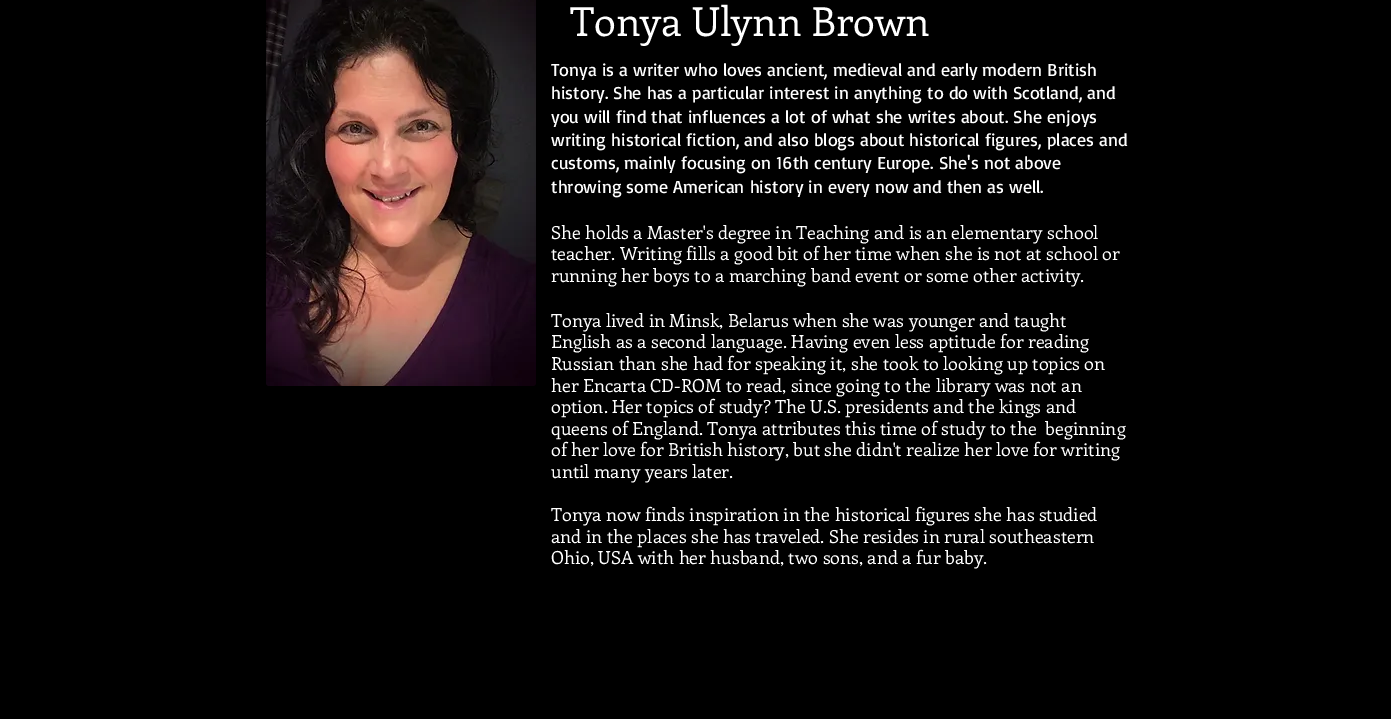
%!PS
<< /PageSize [1391 719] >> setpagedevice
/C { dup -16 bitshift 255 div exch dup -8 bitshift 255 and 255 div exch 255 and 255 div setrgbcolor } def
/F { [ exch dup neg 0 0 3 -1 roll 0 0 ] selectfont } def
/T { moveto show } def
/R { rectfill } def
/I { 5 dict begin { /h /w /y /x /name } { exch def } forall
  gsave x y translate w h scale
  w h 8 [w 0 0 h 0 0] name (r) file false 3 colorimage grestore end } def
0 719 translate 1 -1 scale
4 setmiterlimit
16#000000 C
0 0 1391 719 R
(1.rgb) 266 0 270 386 I
/Enriqueta-Regular 40 F
16#FFFFFF C
(Tonya Ulynn Brown) 570 36 T
/Basic-Regular 18 F
(Tonya is a writer who loves ancient, medieval and early modern British) 551 76 T
(history. She has a particular interest in anything to do with Scotland, and) 551 99 T
(you will find that influences a lot of what she writes about. She enjoys) 551 123 T
(writing historical fiction, and also blogs about historical figures, places and) 551 146 T
(customs, mainly focusing on 16th century Europe. She's not above) 551 169 T
(throwing some American history in every now and then as well.) 551 193 T
/Enriqueta-Regular 18 F
(She holds a Master's degree in Teaching and is an elementary school) 551 239 T
(teacher. Writing fills a good bit of her time when she is not at school or) 551 260 T
(running her boys to a marching band event or some other activity.) 551 282 T
(Tonya lived in Minsk, Belarus when she was younger and taught) 551 327 T
(English as a second language. Having even less aptitude for reading) 551 348 T
(Russian than she had for speaking it, she took to looking up topics on) 551 370 T
(her Encarta CD-ROM to read, since going to the library was not an) 551 392 T
(option. Her topics of study? The U.S. presidents and the kings and) 551 413 T
(queens of England. Tonya attributes this time of study to the  beginning) 551 435 T
(of her love for British history, but she didn't realize her love for writing) 551 456 T
(until many years later.) 551 478 T
(Tonya now finds inspiration in the historical figures she has studied) 551 521 T
(and in the places she has traveled. She resides in rural southeastern) 551 543 T
(Ohio, USA with her husband, two sons, and a fur baby.) 551 564 T
showpage
